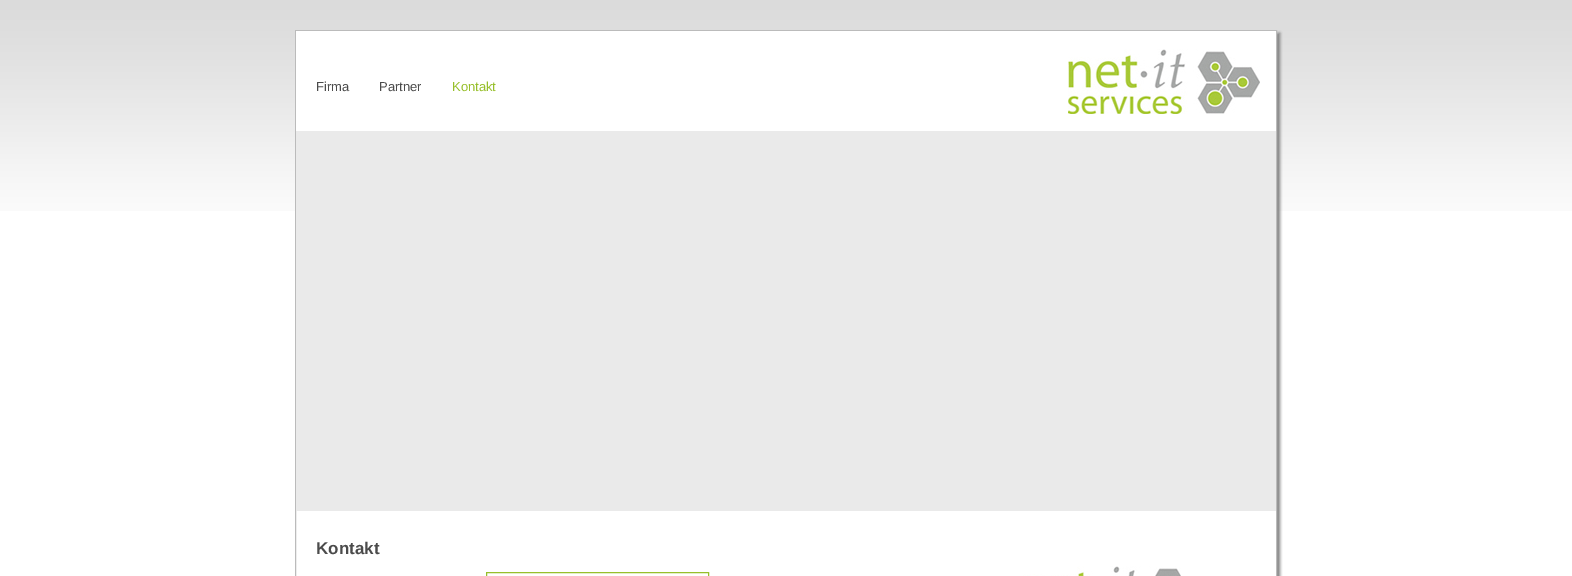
%!PS
<< /PageSize [1572 576] /PageUsesTransparency true >> setpagedevice
/q/gsave load def
/Q_/grestore load def
/C { dup -16 bitshift 255 div exch dup -8 bitshift 255 and 255 div exch 255 and 255 div setrgbcolor } def
/F { [ exch dup neg 0 0 3 -1 roll 0 0 ] selectfont } def
/T { moveto show } def
/R { rectfill } def
/A { dup .setfillconstantalpha .setstrokeconstantalpha } def
/Q { 5 dict begin { /r /h /w /y /x } { exch def } forall
  x r add y moveto x w add y 2 copy h add r arct x w add y h add x 1 index r arct
  x y h add x y r arct x y 2 copy exch w add exch r arct closepath end } def
/S { 12 dict begin { /a /b /q /h /w /y /x } { exch def } forall gsave /was 0 def
  9 -2 -9 { dup b mul 4 div /e exch def 1 sub .425 mul 2.718 exch exp 1 add a .99 .min exch div /now exch def
    1 1 now sub 1 was sub div sub A /was now def
    w h .min e 2 mul add 0 gt { x e sub y e sub w e 2 mul add h e 2 mul add
      q e add b .6 mul add w h .min 2 div e add .min 0 .max Q fill } if } for grestore end } def
/I { 5 dict begin { /h /w /y /x /name } { exch def } forall
  gsave x y translate w h scale
  w h 8 [w 0 0 h 0 0] name (r) file false 3 colorimage grestore end } def
0 .pushpdf14devicefilter
0 576 translate 1 -1 scale
4 setmiterlimit
16#FFFFFF C
0 0 1572 576 R
(1.rgb) 0 0 1572 211 I
q
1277 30 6 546 rectclip
16#808080 C
298 33 982 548 0 1.5 1 S
Q_
16#BBBBBB C
295.5 30.5 981 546 rectstroke
16#FFFFFF C
296 31 980 100 R
/LiberationSans-Regular 13 F
16#4B4B4B C
(Firma) 316 91 T
(Partner) 379 91 T
16#97BF2B C
(Kontakt) 452 91 T
(2.rgb) 1068 49 192 65 I
16#EAEAEA C
296 131 980 380 R
/LiberationSans-Bold 17 F
16#4B4B4B C
(Kontakt) 316 554 T
16#97BF2B C
486.5 572.5 222 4 rectstroke
(3.rgb) 1023 566 158 10 I
.poppdf14devicefilter showpage
